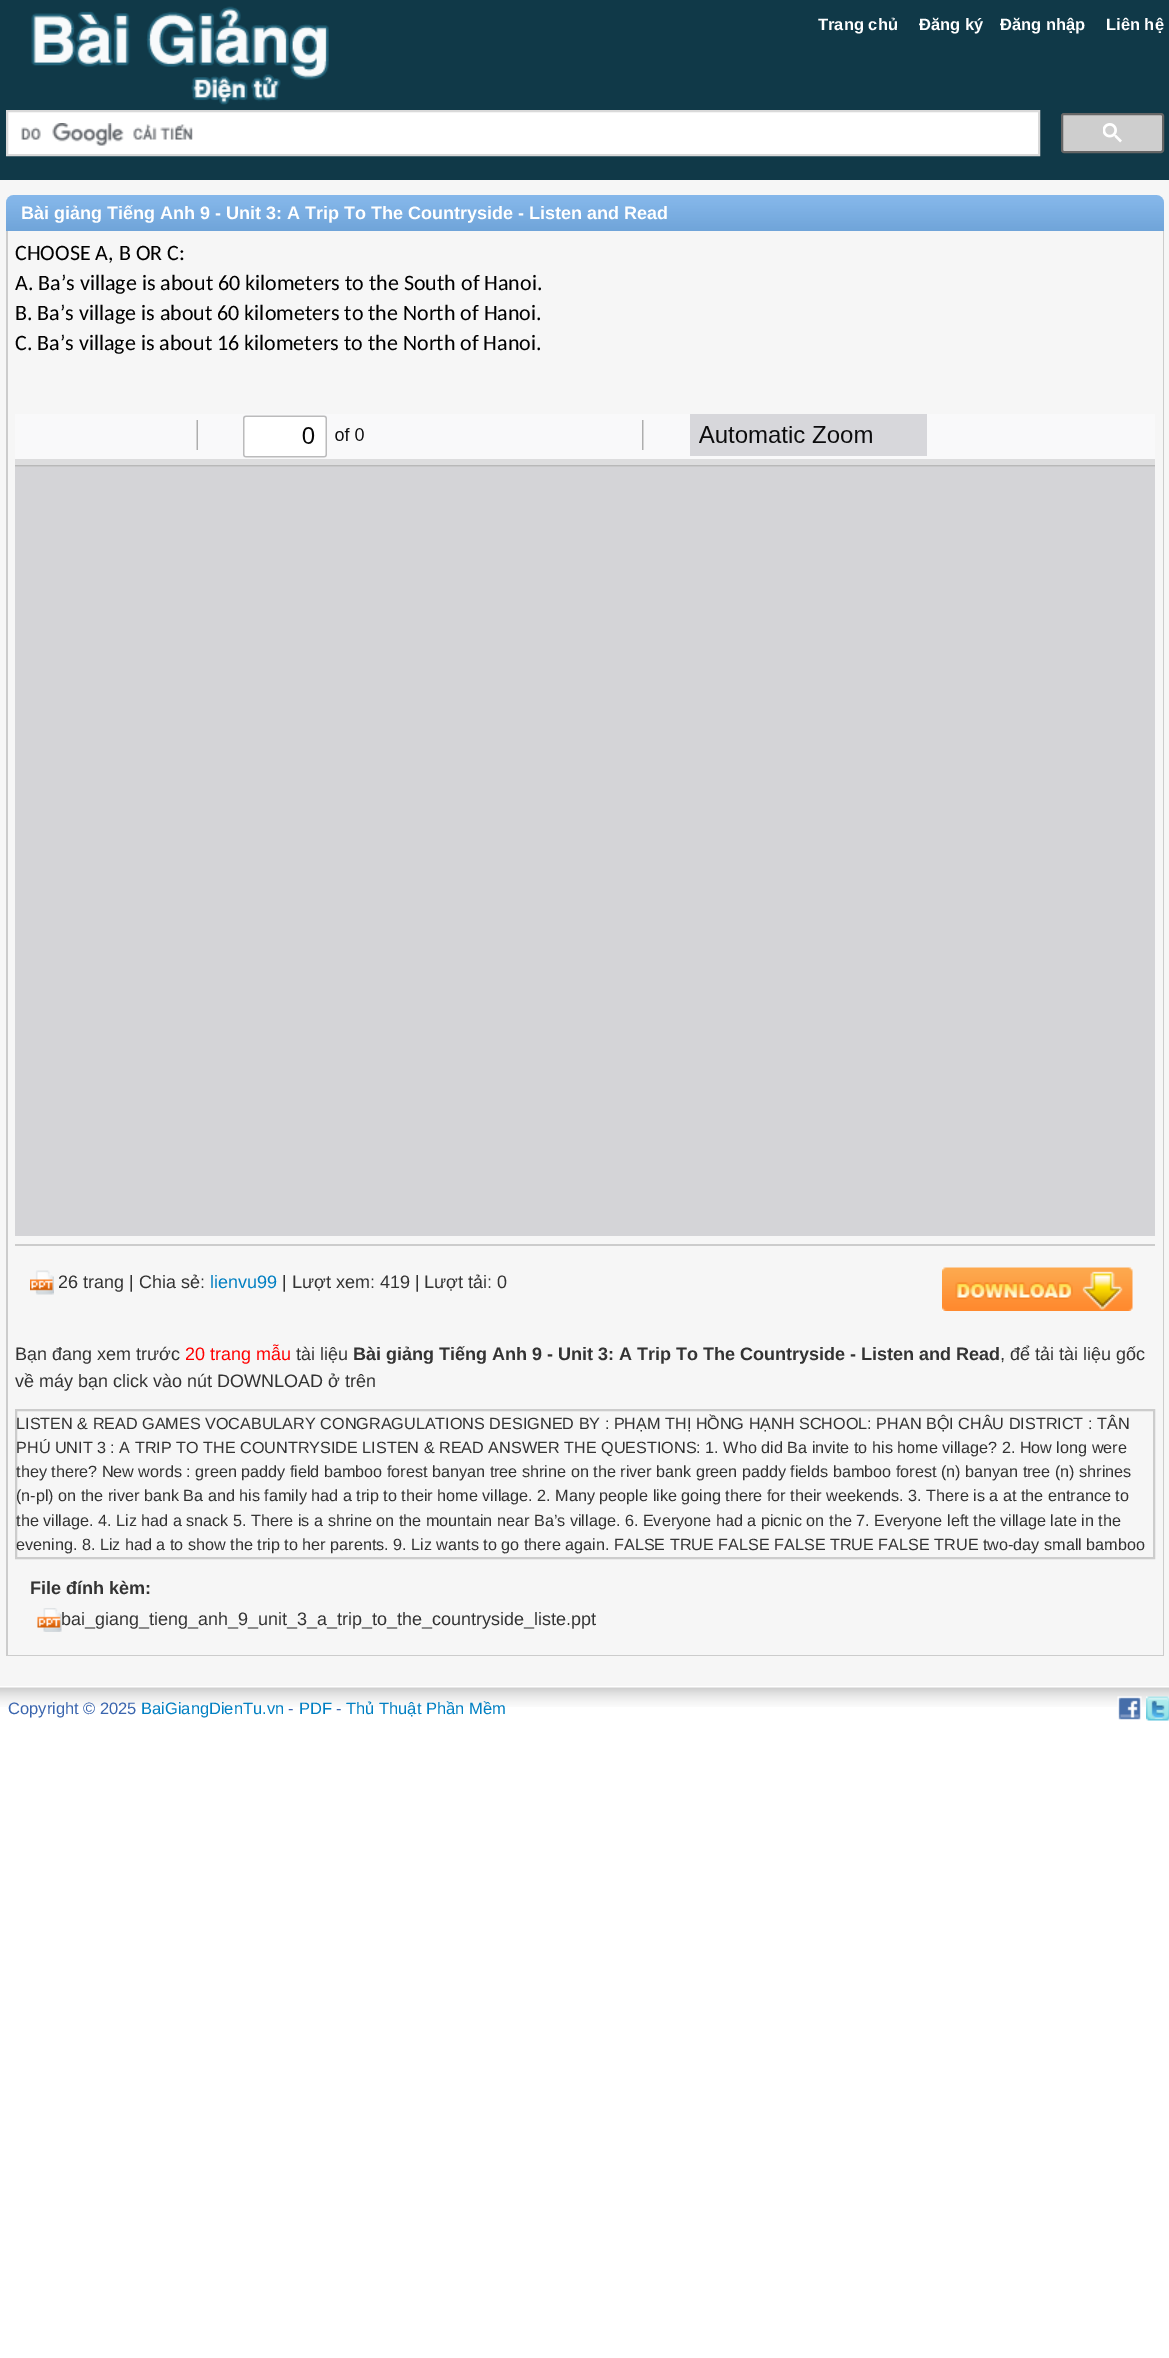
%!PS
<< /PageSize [1169 2358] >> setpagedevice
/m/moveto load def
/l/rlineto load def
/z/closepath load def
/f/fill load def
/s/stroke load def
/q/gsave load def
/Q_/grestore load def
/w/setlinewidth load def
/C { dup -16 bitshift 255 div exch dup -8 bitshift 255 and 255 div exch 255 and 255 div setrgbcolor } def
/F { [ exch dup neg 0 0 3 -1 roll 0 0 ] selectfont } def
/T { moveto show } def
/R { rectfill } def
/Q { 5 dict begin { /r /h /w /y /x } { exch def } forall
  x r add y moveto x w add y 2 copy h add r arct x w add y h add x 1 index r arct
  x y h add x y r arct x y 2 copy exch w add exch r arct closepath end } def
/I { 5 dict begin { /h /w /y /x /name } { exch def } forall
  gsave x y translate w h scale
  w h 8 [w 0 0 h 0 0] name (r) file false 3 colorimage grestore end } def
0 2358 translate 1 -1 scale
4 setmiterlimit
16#FFFFFF C
0 0 1169 2358 R
16#F6F6F6 C
0 180 1169 1506 R
16#103948 C
0 0 1169 180 R
(1.rgb) 31 6 298 99 I
/LiberationSans-Bold 16.5 F
16#FFFFFF C
(Trang chủ) 818 30 T
(Đăng ký) 919 30 T
(Đăng nhập) 1000 30 T
(Liên hệ) 1106 30 T
7 111 m 1032 0 l 0 44 l -1032 0 l z q f Q_
16#D9D9D9 C
2 w
s
(2.rgb) 21 123 172 23 I
16#CECECE C
1062 114 101 38 2 Q q f Q_
16#666666 C
s
(3.rgb) 1103 123 19 20 I
(4.rgb) 6 195 1158 36 I
/LiberationSans-Bold 18 F
16#FFFFFF C
(Bài giảng Tiếng Anh 9 - Unit 3: A Trip To The Countryside - Listen and Read) 21 219 T
16#CCCCCC C
1163 231 1 1425 R
6 1655 1158 1 R
6 231 2 1425 R
/Carlito-Regular 22 F
16#000000 C
(CHOOSE A, B OR C:) 15 260 T
(A. Ba’s village is about 60 kilometers to the South of Hanoi.) 15 290 T
(B. Ba’s village is about 60 kilometers to the North of Hanoi.) 15 320 T
(C. Ba’s village is about 16 kilometers to the North of Hanoi.) 15 350 T
16#CCCCCC C
15 1244 1140 2 R
(5.rgb) 15 414 1140 822 I
(6.rgb) 30 1270 24 25 I
/LiberationSans-Regular 18 F
16#333333 C
(26 trang | Chia sẻ:) 58 1288 T
16#007FC2 C
(lienvu99) 210 1288 T
16#333333 C
(| Lượt xem: 419 | Lượt tải: 0) 282 1288 T
(7.rgb) 942 1267 191 44 I
(Bạn đang xem trước) 15 1360 T
16#FF0000 C
(20 trang mẫu) 185 1360 T
16#333333 C
(tài liệu) 296 1360 T
/LiberationSans-Bold 18 F
(Bài giảng Tiếng Anh 9 - Unit 3: A Trip To The Countryside - Listen and Read) 353 1360 T
/LiberationSans-Regular 18 F
(, để tải tài liệu gốc) 1000 1360 T
(về máy bạn click vào nút DOWNLOAD ở trên) 15 1387 T
16#CCCCCC C
16 1410 1138 148 rectstroke
/LiberationSans-Regular 16.2 F
16#333333 C
(LISTEN & READ GAMES VOCABULARY CONGRAGULATIONS DESIGNED BY : PHẠM THỊ HỒNG HẠNH SCHOOL: PHAN BỘI CHÂU DISTRICT : TÂN) 16 1429 T
(PHÚ UNIT 3 : A TRIP TO THE COUNTRYSIDE LISTEN & READ ANSWER THE QUESTIONS: 1. Who did Ba invite to his home village? 2. How long were) 16 1453 T
(they there? New words : green paddy field bamboo forest banyan tree shrine on the river bank green paddy fields bamboo forest \(n\) banyan tree \(n\) shrines) 16 1477 T
(\(n-pl\) on the river bank Ba and his family had a trip to their home village. 2. Many people like going there for their weekends. 3. There is a at the entrance to) 16 1501 T
(the village. 4. Liz had a snack 5. There is a shrine on the mountain near Ba’s village. 6. Everyone had a picnic on the 7. Everyone left the village late in the) 16 1526 T
(evening. 8. Liz had a to show the trip to her parents. 9. Liz wants to go there again. FALSE TRUE FALSE FALSE TRUE FALSE TRUE two-day small bamboo) 16 1550 T
/LiberationSans-Bold 18 F
(File đính kèm:) 30 1594 T
(8.rgb) 37 1608 25 24 I
/LiberationSans-Regular 18 F
(bai_giang_tieng_anh_9_unit_3_a_trip_to_the_countryside_liste.ppt) 61 1625 T
(9.rgb) 0 1687 1169 20 I
/LiberationSans-Regular 16.5 F
16#3A65AE C
(Copyright © 2025) 8 1714 T
16#007FC2 C
(BaiGiangDienTu.vn) 141 1714 T
16#3A65AE C
(-) 288 1714 T
16#007FC2 C
(PDF) 299 1714 T
16#3A65AE C
(-) 336 1714 T
16#007FC2 C
(Thủ Thuật Phần Mềm) 346 1714 T
(10.rgb) 1117 1696 25 24 I
(11.rgb) 1146 1696 23 25 I
showpage
